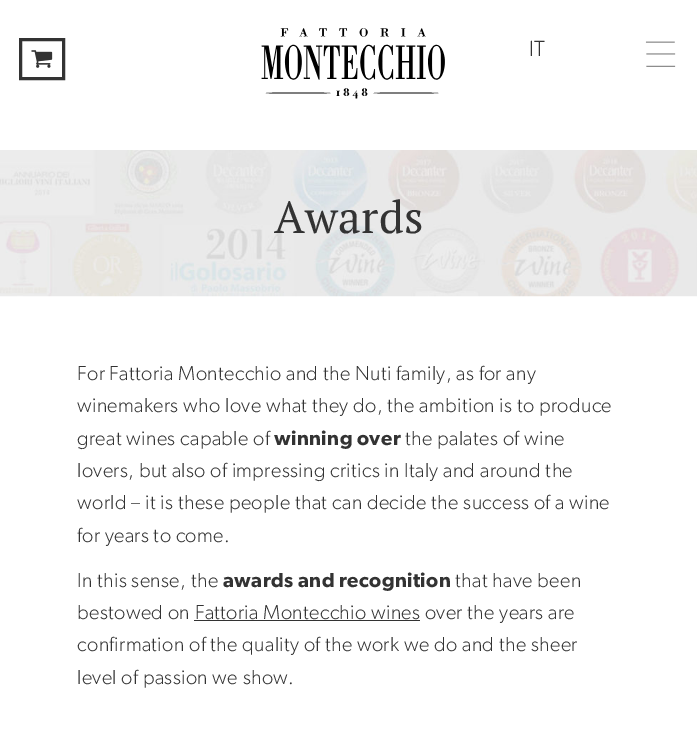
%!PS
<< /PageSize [697 730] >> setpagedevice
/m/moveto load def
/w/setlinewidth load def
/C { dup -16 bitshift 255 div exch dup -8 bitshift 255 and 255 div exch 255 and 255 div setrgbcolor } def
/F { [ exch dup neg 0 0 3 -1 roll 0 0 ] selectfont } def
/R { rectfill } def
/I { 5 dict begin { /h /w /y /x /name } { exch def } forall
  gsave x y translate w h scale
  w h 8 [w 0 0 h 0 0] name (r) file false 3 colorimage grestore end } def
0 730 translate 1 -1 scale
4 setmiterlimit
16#FFFFFF C
0 0 697 730 R
16#333333 C
3 w
20.5 39.5 43 39 rectstroke
(1.rgb) 31 50 22 18 I
(2.rgb) 261 28 184 71 I
/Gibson-Light 22 F
529 56 m .38 0 (IT) ashow
(3.rgb) 645 41 31 26 I
(4.rgb) 0 150 697 147 I
/PTSerif-Regular 45 F
274 233 m .38 0 (Awards) ashow
/Gibson-Light 20.25 F
77 380 m .38 0 (For Fattoria Montecchio and the Nuti family, as for any) ashow
77 412 m .38 0 (winemakers who love what they do, the ambition is to produce) ashow
77 445 m .38 0 (great wines capable of) ashow
/Gibson-SemiBold 20.25 F
274 445 m .38 0 (winning over) ashow
/Gibson-Light 20.25 F
405 445 m .38 0 (the palates of wine) ashow
77 477 m .38 0 (lovers, but also of impressing critics in Italy and around the) ashow
77 509 m .38 0 (world – it is these people that can decide the success of a wine) ashow
77 542 m .38 0 (for years to come.) ashow
77 587 m .38 0 (In this sense, the) ashow
/Gibson-SemiBold 20.25 F
223 587 m .38 0 (awards and recognition) ashow
/Gibson-Light 20.25 F
455 587 m .38 0 (that have been) ashow
77 619 m .38 0 (bestowed on Fattoria Montecchio wines over the years are) ashow
194 620 226 1 R
77 651 m .38 0 (confirmation of the quality of the work we do and the sheer) ashow
77 684 m .38 0 (level of passion we show.) ashow
showpage
